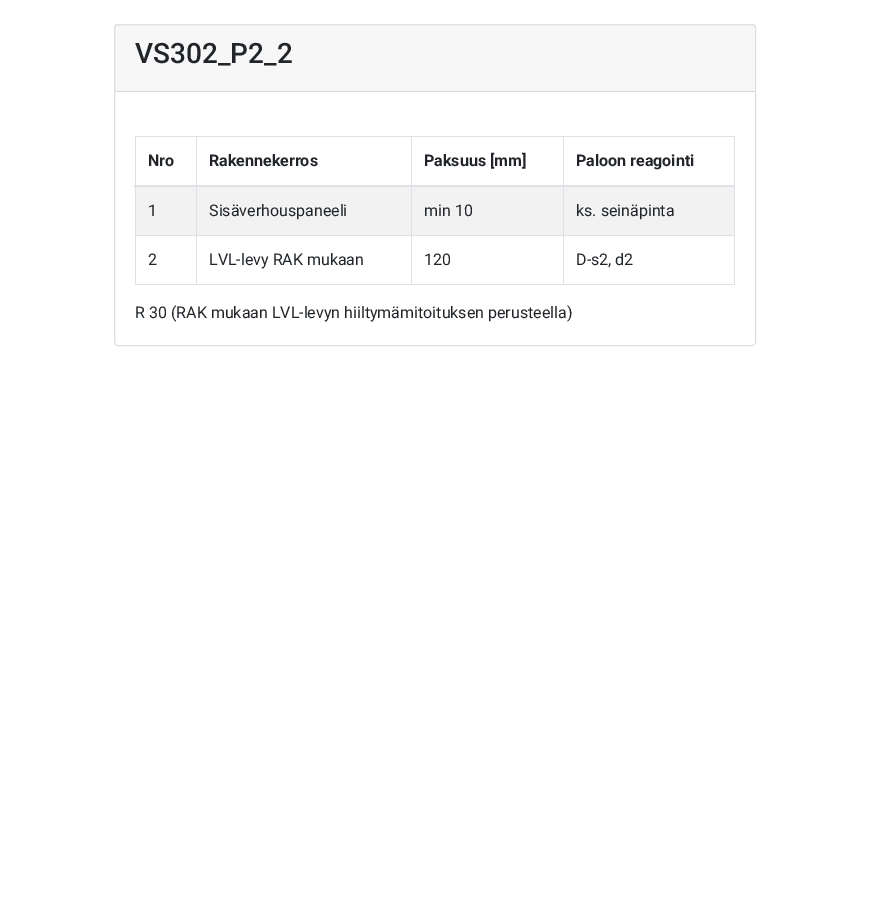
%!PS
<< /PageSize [869 923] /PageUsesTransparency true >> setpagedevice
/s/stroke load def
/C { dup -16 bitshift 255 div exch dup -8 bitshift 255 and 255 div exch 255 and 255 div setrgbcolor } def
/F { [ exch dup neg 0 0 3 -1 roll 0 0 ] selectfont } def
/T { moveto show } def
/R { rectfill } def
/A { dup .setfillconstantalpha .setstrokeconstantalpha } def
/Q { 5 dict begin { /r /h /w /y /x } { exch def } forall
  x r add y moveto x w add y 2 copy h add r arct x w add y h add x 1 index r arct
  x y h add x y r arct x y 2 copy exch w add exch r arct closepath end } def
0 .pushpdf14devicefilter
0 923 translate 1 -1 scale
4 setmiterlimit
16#FFFFFF C
0 0 869 923 R
16#DFDFDF C
114.5 24.5 641 321 3.5 Q s
0.03 A
16#000000 C
115 25 640 66 R
1 A
16#D8D8D8 C
115 91 640 1 R
/Roboto-Medium 28 F
16#212529 C
(VS302_P2_2) 135 63 T
16#DEE2E6 C
135 136 600 1 R
734 136 1 149 R
135 284 600 1 R
135 136 1 149 R
/Roboto-Bold 16 F
16#212529 C
(Nro) 148 166 T
(Rakennekerros) 209 166 T
(Paksuus [mm]) 424 166 T
16#F2F2F2 C
136 187 598 48 R
16#DEE2E6 C
563 235 172 1 R
563 235 1 50 R
411 235 153 1 R
411 235 1 50 R
196 235 216 1 R
196 235 1 50 R
135 235 62 1 R
196 136 1 100 R
411 136 1 100 R
563 136 1 100 R
134 185 601 2 R
16#212529 C
(Paloon reagointi) 576 166 T
/Roboto-Regular 16 F
(1) 148 216 T
(Sisäverhouspaneeli) 209 216 T
(min 10) 424 216 T
(ks. seinäpinta) 576 216 T
(2) 148 265 T
(LVL-levy RAK mukaan) 209 265 T
(120) 424 265 T
(D-s2, d2) 576 265 T
(R 30 \(RAK mukaan LVL-levyn hiiltymämitoituksen perusteella\)) 135 318 T
.poppdf14devicefilter showpage
